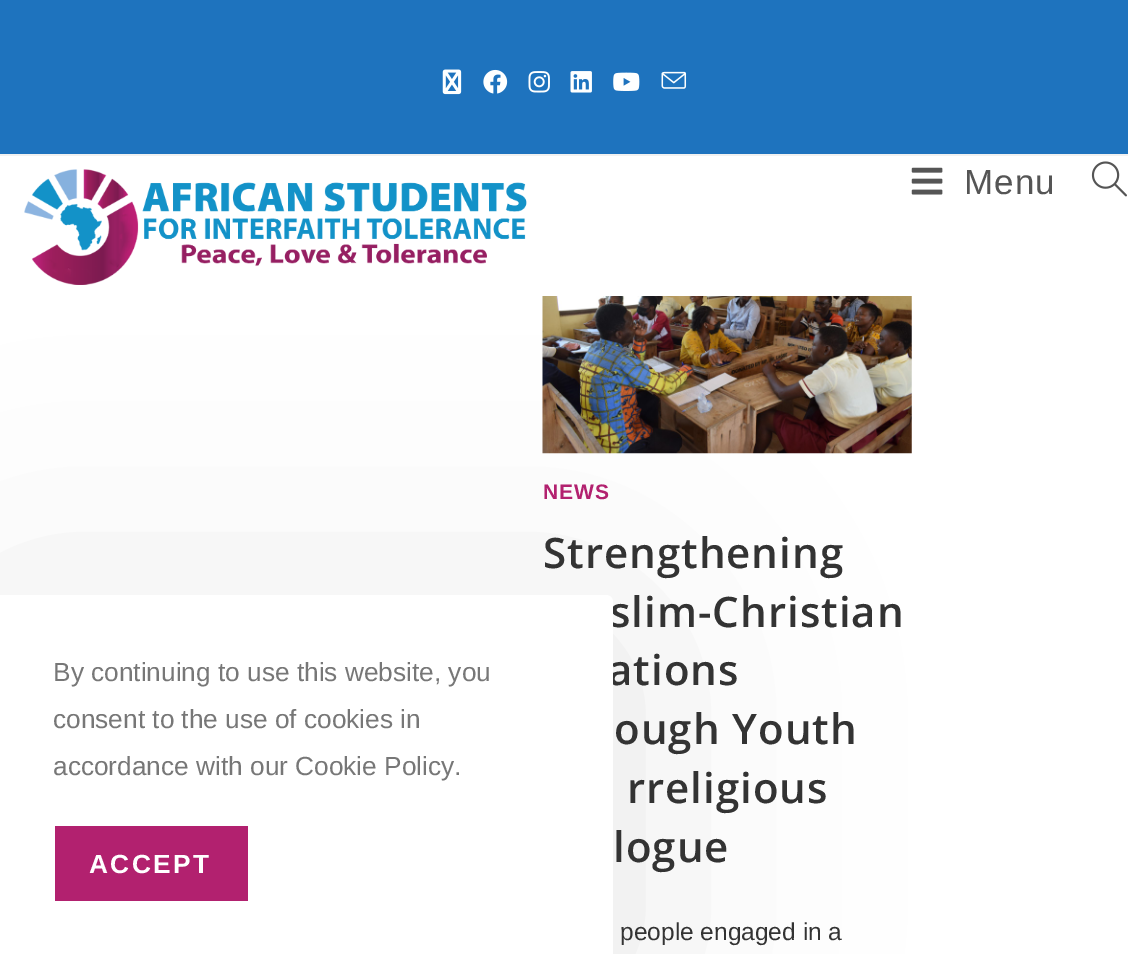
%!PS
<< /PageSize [1128 954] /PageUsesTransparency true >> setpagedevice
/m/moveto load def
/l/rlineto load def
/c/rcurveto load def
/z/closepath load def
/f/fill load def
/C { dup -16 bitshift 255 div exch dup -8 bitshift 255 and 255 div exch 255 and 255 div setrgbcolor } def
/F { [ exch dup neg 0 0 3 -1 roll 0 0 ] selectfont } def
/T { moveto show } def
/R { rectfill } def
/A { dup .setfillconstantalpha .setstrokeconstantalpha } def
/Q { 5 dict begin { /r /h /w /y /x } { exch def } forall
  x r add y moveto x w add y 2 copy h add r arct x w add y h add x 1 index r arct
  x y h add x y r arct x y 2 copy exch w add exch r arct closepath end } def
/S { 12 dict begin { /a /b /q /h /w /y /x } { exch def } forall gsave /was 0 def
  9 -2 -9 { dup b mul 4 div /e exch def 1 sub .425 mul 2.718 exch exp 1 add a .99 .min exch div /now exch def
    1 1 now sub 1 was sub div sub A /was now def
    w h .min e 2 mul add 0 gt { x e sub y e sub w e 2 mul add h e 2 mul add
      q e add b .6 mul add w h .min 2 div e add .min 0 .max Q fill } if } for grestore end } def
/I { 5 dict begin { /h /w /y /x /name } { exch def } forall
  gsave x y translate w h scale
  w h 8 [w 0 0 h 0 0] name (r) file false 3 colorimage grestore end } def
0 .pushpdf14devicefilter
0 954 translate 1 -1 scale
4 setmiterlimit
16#FFFFFF C
0 0 1128 954 R
(7.rgb) 24 169 503 116 I
(10.rgb) 542 296 370 158 I
16#000000 C
0 630 613 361 7 131 .1 S
/OpenSans-SemiBold 42 F
16#333333 C
610 627 m 1 0 (slim-Christian) ashow
608 685 m 1 0 (ations) ashow
16#FFFFFF C
0 595 m 606 0 l 4 0 7 3 7 7 c 0 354 l -613 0 l z f
/LiberationSans-Regular 26.25 F
16#777777 C
(By continuing to use this website, you) 53 681 T
(consent to the use of cookies in) 53 728 T
(accordance with our Cookie Policy.) 53 775 T
16#B2216F C
55 826 193 75 R
/LiberationSans-Bold 26.25 F
16#FFFFFF C
89 873 m 2.5 0 (ACCEPT) ashow
16#1E73BE C
0 0 1128 154 R
16#F1F1F1 C
0 154 1128 2 R
(1.rgb) 442 69 20 26 I
(2.rgb) 483 69 25 25 I
(3.rgb) 528 71 22 22 I
(4.rgb) 570 71 22 22 I
(5.rgb) 613 72 27 19 I
(6.rgb) 661 71 26 18 I
(8.rgb) 911 167 32 28 I
/LiberationSans-Regular 35 F
16#555555 C
964 194 m 1 0 (Menu) ashow
(9.rgb) 1091 161 36 36 I
/LiberationSans-Bold 21 F
16#B2216F C
543 499 m 1 0 (NEWS) ashow
/OpenSans-SemiBold 42 F
16#333333 C
543 568 m 1 0 (Strengthening) ashow
614 744 m 1 0 (ough Youth) ashow
627 803 m 1 0 (rreligious) ashow
613 862 m 1 0 (logue) ashow
/LiberationSans-Regular 24.5 F
(people engaged in a) 620 940 T
.poppdf14devicefilter showpage
